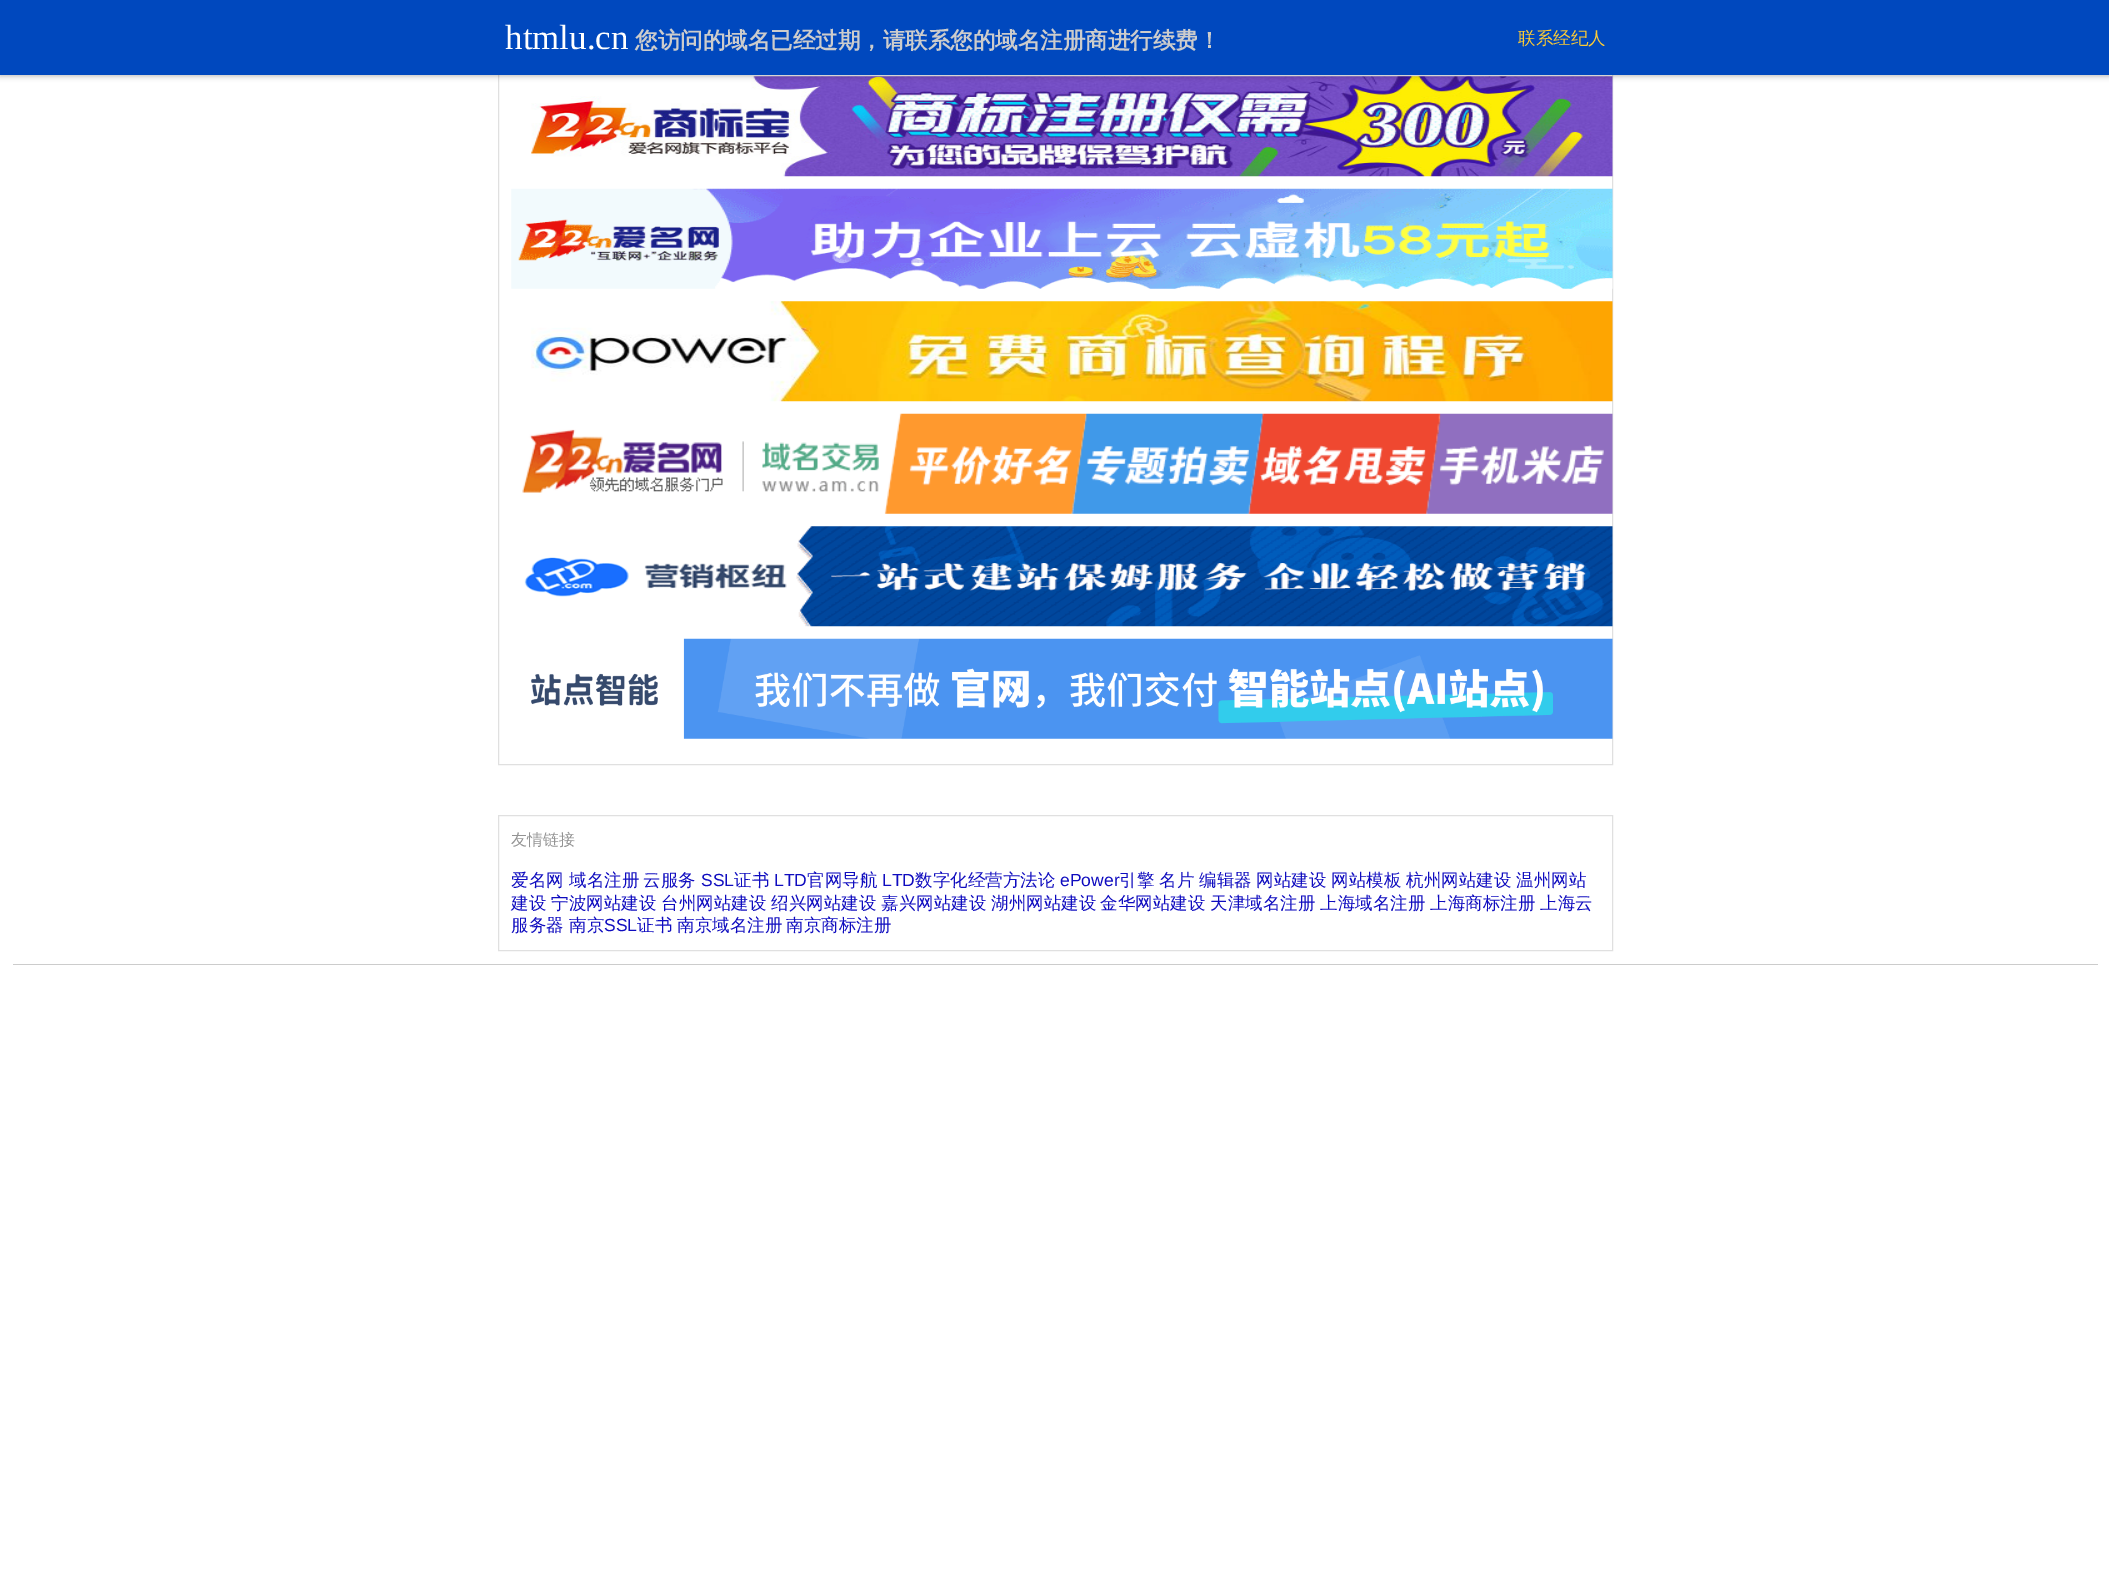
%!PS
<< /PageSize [2109 1569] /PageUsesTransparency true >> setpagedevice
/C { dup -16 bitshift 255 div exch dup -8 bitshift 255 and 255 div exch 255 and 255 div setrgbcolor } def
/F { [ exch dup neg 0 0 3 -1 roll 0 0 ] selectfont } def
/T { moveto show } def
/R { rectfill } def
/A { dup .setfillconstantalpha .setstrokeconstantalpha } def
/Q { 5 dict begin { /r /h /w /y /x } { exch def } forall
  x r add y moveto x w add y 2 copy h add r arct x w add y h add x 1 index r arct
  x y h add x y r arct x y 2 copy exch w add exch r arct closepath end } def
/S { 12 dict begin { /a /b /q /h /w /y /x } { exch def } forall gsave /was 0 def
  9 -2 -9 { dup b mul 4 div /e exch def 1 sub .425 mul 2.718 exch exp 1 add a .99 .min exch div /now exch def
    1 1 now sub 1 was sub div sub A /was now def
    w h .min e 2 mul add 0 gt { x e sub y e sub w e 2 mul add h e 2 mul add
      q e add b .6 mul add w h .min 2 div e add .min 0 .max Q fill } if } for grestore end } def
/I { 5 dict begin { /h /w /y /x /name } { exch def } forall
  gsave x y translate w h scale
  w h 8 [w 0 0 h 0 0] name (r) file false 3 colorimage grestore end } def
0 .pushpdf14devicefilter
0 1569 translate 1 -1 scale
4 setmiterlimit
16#FFFFFF C
0 0 2109 1569 R
16#E0E0E0 C
498.5 50.5 1114 714 rectstroke
(1.rgb) 531 76 1082 101 I
16#000000 C
0 1 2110 75 0 3 .3 S
16#0048BE C
0 0 2109 75 R
/LiberationSerif-Regular 35 F
16#FFFFFF C
(htmlu.cn) 505 49 T
/WenQuanYiZenHei-Bold 22.5 F
16#CCCCCC C
(您访问的域名已经过期，请联系您的域名注册商进行续费！) 635 48 T
/WenQuanYiZenHei-Medium 17.5 F
16#FFCC33 C
(联系经纪人) 1518 44 T
(2.rgb) 511 188 1102 101 I
(3.rgb) 531 301 1082 101 I
(4.rgb) 522 413 1091 101 I
(5.rgb) 524 526 1089 101 I
(6.rgb) 531 638 1082 101 I
16#E0E0E0 C
498.5 815.5 1114 135 rectstroke
/WenQuanYiZenHei-Medium 16 F
16#939393 C
(友情链接) 511 845 T
/WenQuanYiZenHei-Medium 17.5 F
16#0F0CBF C
(爱名网) 511 886 T
(域名注册) 569 886 T
(云服务) 643 886 T
/LiberationSans-Regular 17.5 F
(SSL) 701 886 T
/WenQuanYiZenHei-Medium 17.5 F
(证书) 734 886 T
/LiberationSans-Regular 17.5 F
(LTD) 774 886 T
/WenQuanYiZenHei-Medium 17.5 F
(官网导航) 807 886 T
/LiberationSans-Regular 17.5 F
(LTD) 882 886 T
/WenQuanYiZenHei-Medium 17.5 F
(数字化经营方法论) 915 886 T
/LiberationSans-Regular 17.5 F
(ePower) 1060 886 T
/WenQuanYiZenHei-Medium 17.5 F
(引擎) 1119 886 T
(名片) 1159 886 T
(编辑器) 1199 886 T
(网站建设) 1256 886 T
(网站模板) 1331 886 T
(杭州网站建设) 1406 886 T
(温州网站) 1516 886 T
(建设) 511 909 T
(宁波网站建设) 551 909 T
(台州网站建设) 661 909 T
(绍兴网站建设) 771 909 T
(嘉兴网站建设) 881 909 T
(湖州网站建设) 991 909 T
(金华网站建设) 1100 909 T
(天津域名注册) 1210 909 T
(上海域名注册) 1320 909 T
(上海商标注册) 1430 909 T
(上海云) 1540 909 T
(服务器) 511 931 T
(南京) 569 931 T
/LiberationSans-Regular 17.5 F
(SSL) 604 931 T
/WenQuanYiZenHei-Medium 17.5 F
(证书) 637 931 T
(南京域名注册) 677 931 T
(南京商标注册) 786 931 T
16#CCCCCC C
13 964 2085 1 R
.poppdf14devicefilter showpage
